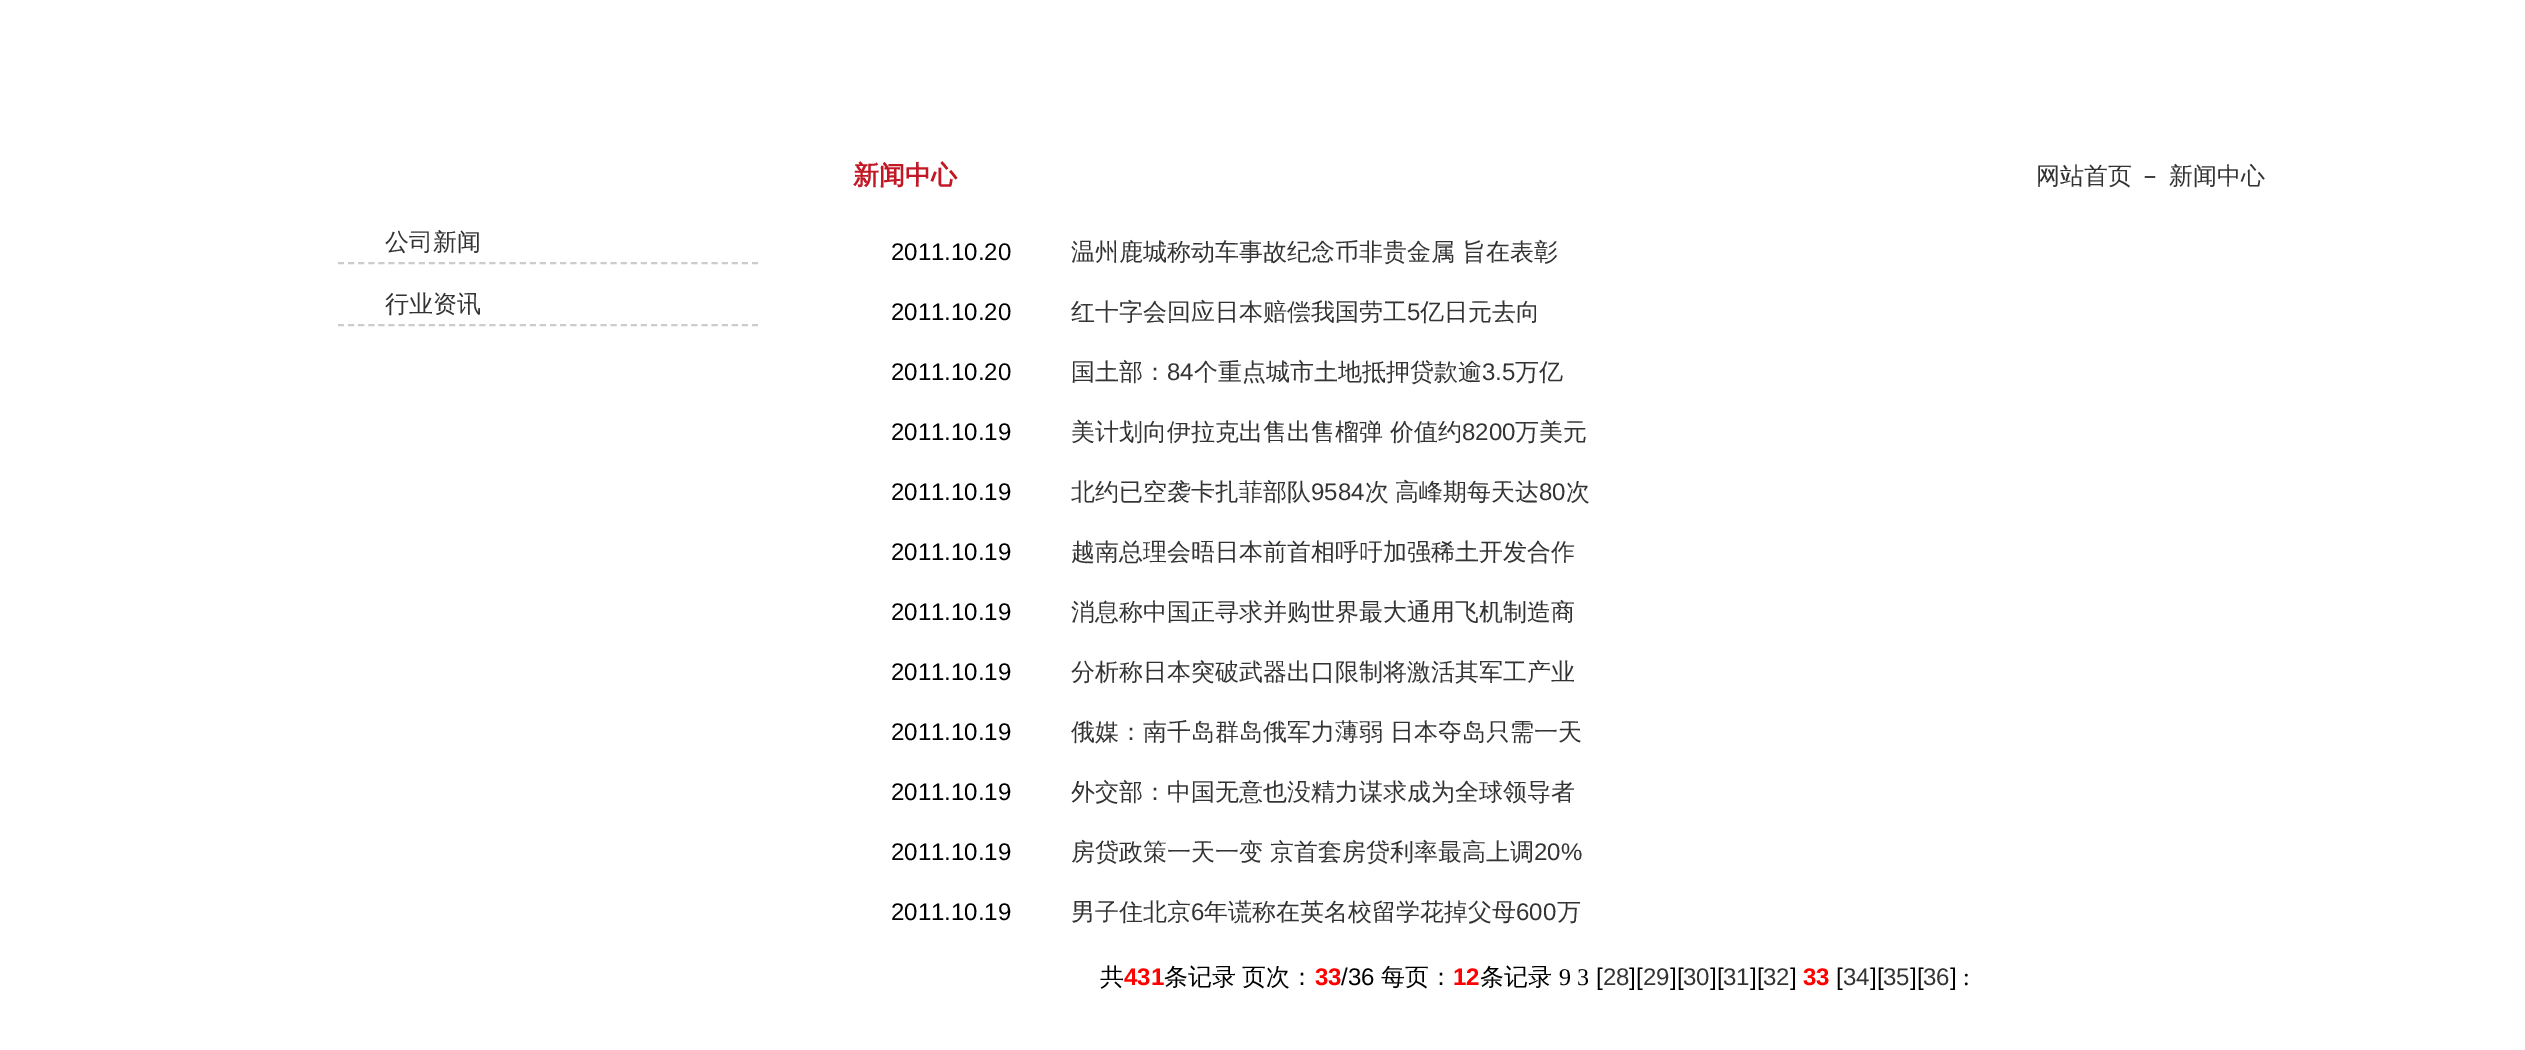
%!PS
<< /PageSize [2525 1050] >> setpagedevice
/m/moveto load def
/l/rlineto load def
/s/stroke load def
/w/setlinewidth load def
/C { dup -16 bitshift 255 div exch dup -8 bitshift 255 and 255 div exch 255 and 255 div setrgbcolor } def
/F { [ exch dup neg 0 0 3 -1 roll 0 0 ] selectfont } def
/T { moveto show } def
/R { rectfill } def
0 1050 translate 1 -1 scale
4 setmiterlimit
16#FFFFFF C
0 0 2525 1050 R
16#CCCCCC C
2 w
[6 4.1] 0 setdash
338 263 m 420 0 l s
/WenQuanYiZenHei-Medium 24 F
16#333333 C
(公司新闻) 385 250 T
16#CCCCCC C
338 325 m 420 0 l s
16#333333 C
(行业资讯) 385 312 T
/WenQuanYiZenHei-Bold 26 F
16#C21724 C
(新闻中心) 853 184 T
/WenQuanYiZenHei-Medium 24 F
16#333333 C
(网站首页) 2036 184 T
16#000000 C
(－) 2138 184 T
16#333333 C
(新闻中心) 2169 184 T
/LiberationSans-Regular 24 F
16#000000 C
(2011.10.20) 891 260 T
/WenQuanYiZenHei-Medium 24 F
16#333333 C
(温州鹿城称动车事故纪念币非贵金属) 1071 260 T
(旨在表彰) 1462 260 T
/LiberationSans-Regular 24 F
16#000000 C
(2011.10.20) 891 320 T
/WenQuanYiZenHei-Medium 24 F
16#333333 C
(红十字会回应日本赔偿我国劳工) 1071 320 T
/LiberationSans-Regular 24 F
(5) 1407 320 T
/WenQuanYiZenHei-Medium 24 F
(亿日元去向) 1420 320 T
/LiberationSans-Regular 24 F
16#000000 C
(2011.10.20) 891 380 T
/WenQuanYiZenHei-Medium 24 F
16#333333 C
(国土部：) 1071 380 T
/LiberationSans-Regular 24 F
(84) 1167 380 T
/WenQuanYiZenHei-Medium 24 F
(个重点城市土地抵押贷款逾) 1194 380 T
/LiberationSans-Regular 24 F
(3.5) 1482 380 T
/WenQuanYiZenHei-Medium 24 F
(万亿) 1515 380 T
/LiberationSans-Regular 24 F
16#000000 C
(2011.10.19) 891 440 T
/WenQuanYiZenHei-Medium 24 F
16#333333 C
(美计划向伊拉克出售出售榴弹) 1071 440 T
(价值约) 1390 440 T
/LiberationSans-Regular 24 F
(8200) 1462 440 T
/WenQuanYiZenHei-Medium 24 F
(万美元) 1515 440 T
/LiberationSans-Regular 24 F
16#000000 C
(2011.10.19) 891 500 T
/WenQuanYiZenHei-Medium 24 F
16#333333 C
(北约已空袭卡扎菲部队) 1071 500 T
/LiberationSans-Regular 24 F
(9584) 1311 500 T
/WenQuanYiZenHei-Medium 24 F
(次) 1365 500 T
(高峰期每天达) 1395 500 T
/LiberationSans-Regular 24 F
(80) 1539 500 T
/WenQuanYiZenHei-Medium 24 F
(次) 1566 500 T
/LiberationSans-Regular 24 F
16#000000 C
(2011.10.19) 891 560 T
/WenQuanYiZenHei-Medium 24 F
16#333333 C
(越南总理会晤日本前首相呼吁加强稀土开发合作) 1071 560 T
/LiberationSans-Regular 24 F
16#000000 C
(2011.10.19) 891 620 T
/WenQuanYiZenHei-Medium 24 F
16#333333 C
(消息称中国正寻求并购世界最大通用飞机制造商) 1071 620 T
/LiberationSans-Regular 24 F
16#000000 C
(2011.10.19) 891 680 T
/WenQuanYiZenHei-Medium 24 F
16#333333 C
(分析称日本突破武器出口限制将激活其军工产业) 1071 680 T
/LiberationSans-Regular 24 F
16#000000 C
(2011.10.19) 891 740 T
/WenQuanYiZenHei-Medium 24 F
16#333333 C
(俄媒：南千岛群岛俄军力薄弱) 1071 740 T
(日本夺岛只需一天) 1390 740 T
/LiberationSans-Regular 24 F
16#000000 C
(2011.10.19) 891 800 T
/WenQuanYiZenHei-Medium 24 F
16#333333 C
(外交部：中国无意也没精力谋求成为全球领导者) 1071 800 T
/LiberationSans-Regular 24 F
16#000000 C
(2011.10.19) 891 860 T
/WenQuanYiZenHei-Medium 24 F
16#333333 C
(房贷政策一天一变) 1071 860 T
(京首套房贷利率最高上调) 1270 860 T
/LiberationSans-Regular 24 F
(20%) 1534 860 T
16#000000 C
(2011.10.19) 891 920 T
/WenQuanYiZenHei-Medium 24 F
16#333333 C
(男子住北京) 1071 920 T
/LiberationSans-Regular 24 F
(6) 1191 920 T
/WenQuanYiZenHei-Medium 24 F
(年谎称在英名校留学花掉父母) 1204 920 T
/LiberationSans-Regular 24 F
(600) 1516 920 T
/WenQuanYiZenHei-Medium 24 F
(万) 1557 920 T
16#000000 C
(共) 1100 985 T
/LiberationSans-Bold 24 F
16#FF0000 C
(431) 1124 985 T
/WenQuanYiZenHei-Medium 24 F
16#000000 C
1164 985 m -1 0 32 (条记录 页次：) widthshow
/LiberationSans-Bold 24 F
16#FF0000 C
(33) 1315 985 T
/LiberationSans-Regular 24 F
16#000000 C
(/36) 1341 985 T
/WenQuanYiZenHei-Medium 24 F
(每页：) 1381 985 T
/LiberationSans-Bold 24 F
16#FF0000 C
(12) 1453 985 T
/WenQuanYiZenHei-Medium 24 F
16#000000 C
(条记录) 1480 985 T
/LiberationSerif-Regular 24 F
(9) 1559 985 T
(3) 1577 985 T
/LiberationSans-Regular 24 F
([) 1596 985 T
16#333333 C
(28) 1603 985 T
16#000000 C
(][) 1629 985 T
16#333333 C
(29) 1643 985 T
16#000000 C
(][) 1670 985 T
16#333333 C
(30) 1683 985 T
16#000000 C
(][) 1710 985 T
16#333333 C
(31) 1723 985 T
16#000000 C
(][) 1750 985 T
16#333333 C
(32) 1763 985 T
16#000000 C
(]) 1790 985 T
/LiberationSans-Bold 24 F
16#FF0000 C
(33) 1803 985 T
/LiberationSans-Regular 24 F
16#000000 C
([) 1836 985 T
16#333333 C
(34) 1843 985 T
16#000000 C
(][) 1870 985 T
16#333333 C
(35) 1883 985 T
16#000000 C
(][) 1910 985 T
16#333333 C
(36) 1923 985 T
16#000000 C
(]) 1950 985 T
/LiberationSerif-Regular 24 F
(:) 1963 985 T
showpage
